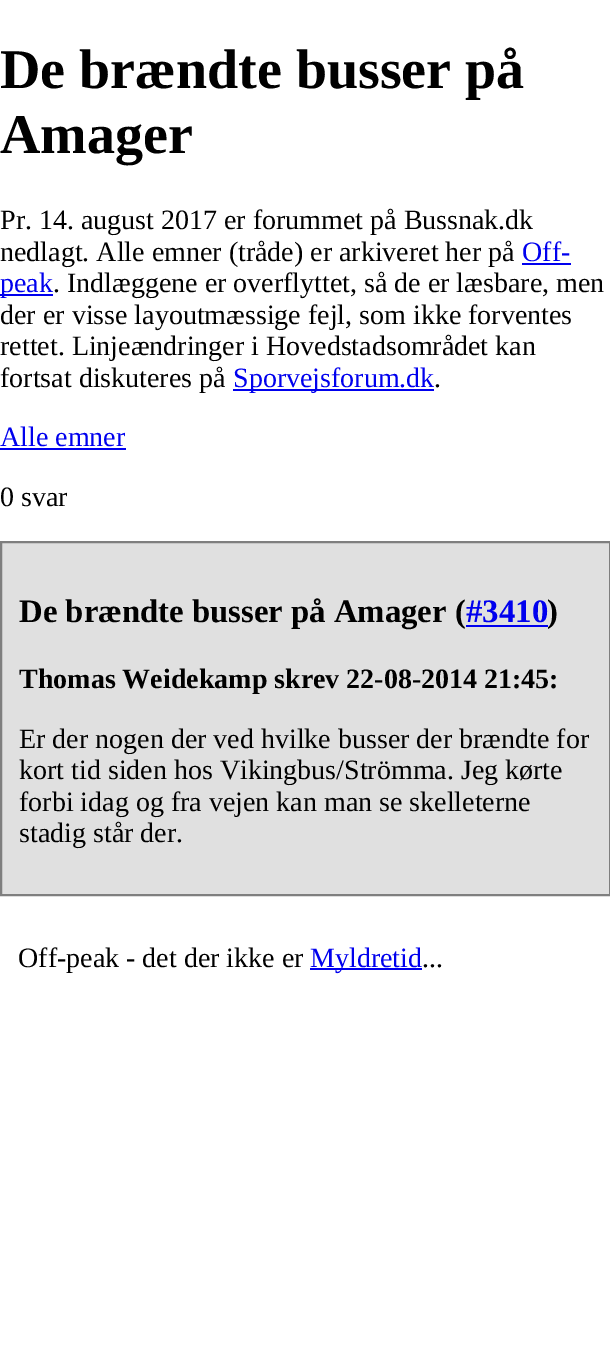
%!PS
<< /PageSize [610 1350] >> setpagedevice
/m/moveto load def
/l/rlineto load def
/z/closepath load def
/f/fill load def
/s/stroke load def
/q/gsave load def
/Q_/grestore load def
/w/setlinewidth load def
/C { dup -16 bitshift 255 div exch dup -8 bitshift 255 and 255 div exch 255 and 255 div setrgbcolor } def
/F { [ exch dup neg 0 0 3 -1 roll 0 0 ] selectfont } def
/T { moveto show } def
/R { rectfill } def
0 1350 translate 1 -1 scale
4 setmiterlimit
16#FFFFFF C
0 0 610 1350 R
/LiberationSerif-Bold 56 F
16#000000 C
(De brændte busser på) 0 88 T
(Amager) 0 153 T
/LiberationSerif-Regular 28 F
(Pr. 14. august 2017 er forummet på Bussnak.dk) 0 229 T
(nedlagt. Alle emner \(tråde\) er arkiveret her på) 0 261 T
16#0000EE C
(Off-) 522 261 T
522 263 49 2 R
0 294 53 2 R
(peak) 0 292 T
16#000000 C
(. Indlæggene er overflyttet, så de er læsbare, men) 53 292 T
(der er visse layoutmæssige fejl, som ikke forventes) 0 324 T
(rettet. Linjeændringer i Hovedstadsområdet kan) 0 355 T
(fortsat diskuteres på) 0 387 T
16#0000EE C
233 389 201 2 R
(Sporvejsforum.dk) 233 387 T
16#000000 C
(.) 434 387 T
16#0000EE C
(Alle emner) 0 446 T
0 448 126 2 R
16#000000 C
(0 svar) 0 506 T
16#E0E0E0 C
1 542 m 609 0 l 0 353 l -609 0 l z q f Q_
16#7F7F7F C
2 w
s
/LiberationSerif-Bold 32.75 F
16#000000 C
(De brændte busser på Amager \() 19 622 T
16#0000EE C
(#3410) 466 622 T
466 625 82 2 R
16#000000 C
(\)) 547 622 T
/LiberationSerif-Bold 28 F
(Thomas Weidekamp skrev 22-08-2014 21:45:) 19 688 T
/LiberationSerif-Regular 28 F
(Er der nogen der ved hvilke busser der brændte for) 19 748 T
(kort tid siden hos Vikingbus/Strömma. Jeg kørte) 19 779 T
(forbi idag og fra vejen kan man se skelleterne) 19 811 T
(stadig står der.) 19 842 T
(Off-peak - det der ikke er) 18 967 T
16#0000EE C
310 968 112 2 R
(Myldretid) 310 967 T
16#000000 C
(...) 422 967 T
showpage
